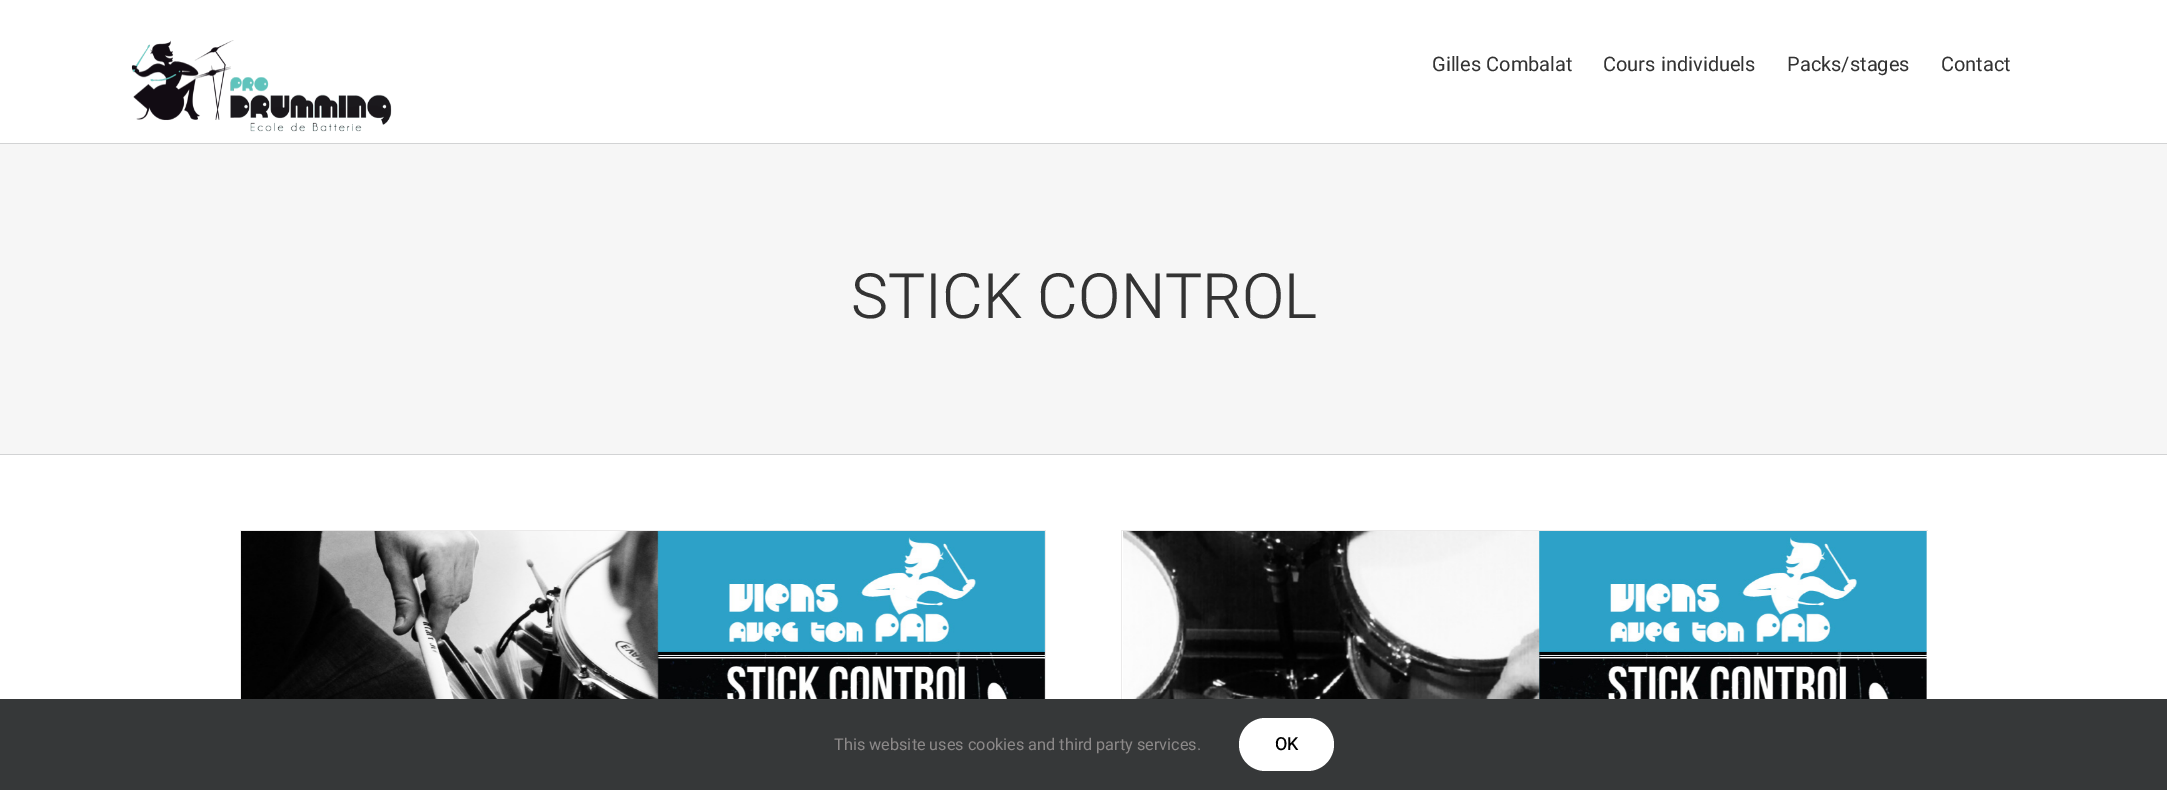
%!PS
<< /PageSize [2167 790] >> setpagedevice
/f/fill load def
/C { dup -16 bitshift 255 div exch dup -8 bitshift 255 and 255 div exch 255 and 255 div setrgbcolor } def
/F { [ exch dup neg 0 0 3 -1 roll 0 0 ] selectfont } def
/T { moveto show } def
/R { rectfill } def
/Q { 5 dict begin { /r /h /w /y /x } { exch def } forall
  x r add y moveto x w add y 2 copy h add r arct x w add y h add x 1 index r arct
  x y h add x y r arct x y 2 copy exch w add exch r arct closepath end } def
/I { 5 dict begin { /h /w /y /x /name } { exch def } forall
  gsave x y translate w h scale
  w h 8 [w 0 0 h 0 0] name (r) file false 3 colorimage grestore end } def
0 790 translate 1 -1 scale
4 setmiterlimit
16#FFFFFF C
0 0 2167 790 R
(1.rgb) 131 40 261 92 I
/Heebo-Regular 20 F
16#333333 C
(Gilles Combalat) 1432 71 T
(Cours individuels) 1603 71 T
(Packs/stages) 1787 71 T
(Contact) 1941 71 T
16#F6F6F6 C
0 144 2167 310 R
16#D2D3D4 C
0 143 2167 1 R
0 454 2167 1 R
/Heebo-Light 62.5 F
16#333333 C
(STICK CONTROL) 851 318 T
16#EBEAEA C
240 530 806 1 R
1045 530 1 169 R
240 530 1 169 R
(2.rgb) 241 531 804 168 I
1121 530 807 1 R
1926 530 1 169 R
1121 530 1 169 R
(3.rgb) 1123 531 804 168 I
16#363839 C
0 699 2167 91 R
/Heebo-Regular 16.25 F
16#8C8989 C
(This website uses cookies and third party services.) 834 750 T
16#FFFFFF C
1239 718 95 53 26.5 Q f
/Heebo-Medium 18 F
16#000000 C
(OK) 1275 750 T
showpage
